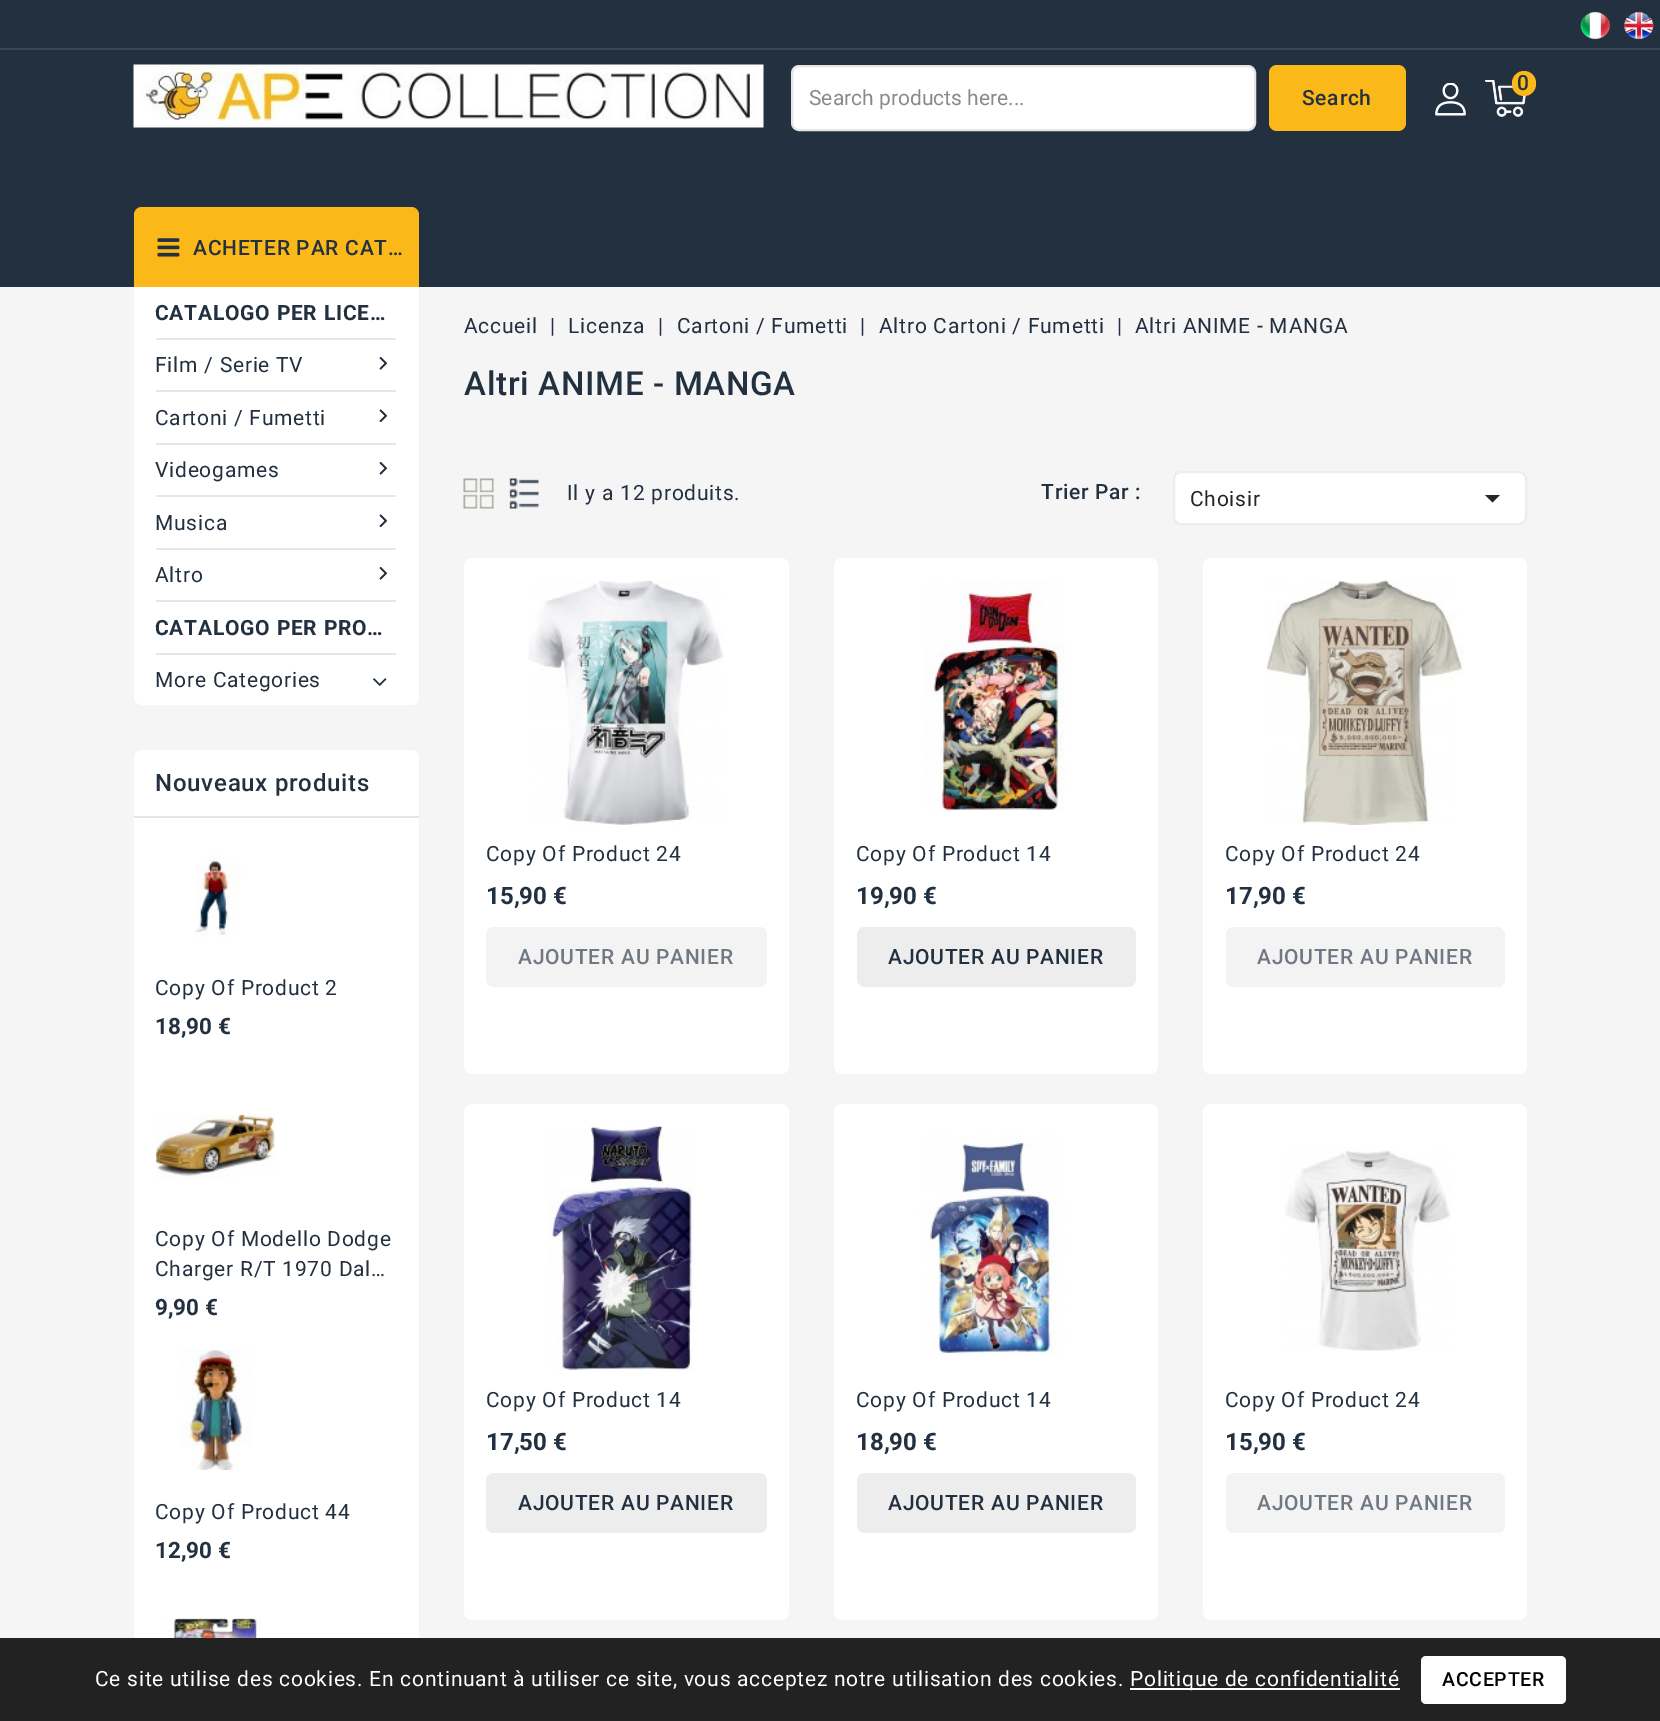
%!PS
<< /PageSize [1660 1721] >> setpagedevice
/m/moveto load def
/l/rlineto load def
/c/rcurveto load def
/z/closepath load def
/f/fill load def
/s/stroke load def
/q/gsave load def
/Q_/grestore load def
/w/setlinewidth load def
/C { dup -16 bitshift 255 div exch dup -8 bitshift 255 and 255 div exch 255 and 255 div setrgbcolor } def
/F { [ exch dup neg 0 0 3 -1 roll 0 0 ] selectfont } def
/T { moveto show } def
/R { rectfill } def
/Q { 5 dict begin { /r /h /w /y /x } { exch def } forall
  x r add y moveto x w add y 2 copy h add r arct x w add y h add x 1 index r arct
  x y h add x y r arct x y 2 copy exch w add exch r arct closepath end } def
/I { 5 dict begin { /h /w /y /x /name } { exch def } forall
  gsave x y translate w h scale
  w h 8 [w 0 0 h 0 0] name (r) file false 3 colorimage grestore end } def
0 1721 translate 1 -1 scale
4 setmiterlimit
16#F5F5F5 C
0 0 1660 1721 R
16#233040 C
0 0 1660 287 R
16#394553 C
0 48 1660 2 R
(1.rgb) 1580 11 31 29 I
(2.rgb) 1624 12 30 28 I
(3.rgb) 133 64 631 64 I
16#FFFFFF C
792 66 463 64 7 Q q f Q_
16#E5E5E5 C
2 w
s
/Roboto-Regular 21 F
16#8A8A8A C
(Search products here...) 809 105 T
16#FAB819 C
1269 65 137 66 8 Q f
/Roboto-Medium 21 F
16#233040 C
1302 105 m .75 0 (Search) ashow
(4.rgb) 1435 83 31 33 I
(5.rgb) 1485 80 41 37 I
16#FAB819 C
1512 71 24 25 12 Q f
16#233040 C
(0) 1517 90 T
16#FAB819 C
142 207 m 269 0 l 4.5 0 8 3.5 8 8 c 0 72 l -285 0 l 0 -72 l 0 -4.5 3.5 -8 8 -8 c z f
(6.rgb) 157 238 23 19 I
16#233040 C
193 255 m .75 0 (ACHETER PAR CAT…) ashow
16#FFFFFF C
134 287 m 285 0 l 0 410 l 0 4.5 -3.5 8 -8 8 c -269 0 l -4.5 0 -8 -3.5 -8 -8 c z f
16#E6E6E6 C
156 338 240 2 R
/Roboto-Bold 21 F
16#233040 C
155 320 m .75 0 (CATALOGO PER LICE…) ashow
16#E6E6E6 C
156 390 240 2 R
/Roboto-Regular 21 F
16#233040 C
155 372 m .75 0 (Film / Serie TV) ashow
(7.rgb) 379 357 8 13 I
(8.rgb) 379 357 8 13 I
16#E6E6E6 C
156 443 240 2 R
16#233040 C
155 425 m .75 0 (Cartoni / Fumetti) ashow
(9.rgb) 379 409 8 13 I
(10.rgb) 379 409 8 13 I
16#E6E6E6 C
156 495 240 2 R
16#233040 C
155 477 m .75 0 (Videogames) ashow
(7.rgb) 379 462 8 13 I
(8.rgb) 379 462 8 13 I
16#E6E6E6 C
156 548 240 2 R
16#233040 C
155 530 m .75 0 (Musica) ashow
(9.rgb) 379 514 8 13 I
(10.rgb) 379 514 8 13 I
16#E6E6E6 C
156 600 240 2 R
16#233040 C
155 582 m .75 0 (Altro) ashow
(7.rgb) 379 567 8 13 I
(8.rgb) 379 567 8 13 I
16#E6E6E6 C
156 653 240 2 R
/Roboto-Bold 21 F
16#233040 C
155 635 m .75 0 (CATALOGO PER PRO…) ashow
/Roboto-Regular 21 F
155 687 m .75 0 (More Categories) ashow
(11.rgb) 373 678 14 8 I
16#FFFFFF C
142 750 m 269 0 l 4.5 0 8 3.5 8 8 c 0 60 l -285 0 l 0 -60 l 0 -4.5 3.5 -8 8 -8 c z f
16#E5E5E5 C
134 816 285 2 R
/Roboto-Medium 24 F
16#233040 C
155 791 m .75 0 (Nouveaux produits) ashow
16#FFFFFF C
134 818 285 820 R
(12.rgb) 195 855 46 82 I
/Roboto-Regular 21 F
16#233040 C
155 995 m .75 0 (Copy Of Product 2) ashow
/Roboto-Bold 22.5 F
(18,90 €) 155 1034 T
(13.rgb) 156 1113 119 67 I
/Roboto-Regular 21 F
155 1246 m .75 0 (Copy Of Modello Dodge) ashow
155 1276 m .75 0 (Charger R/T 1970 Dal…) ashow
/Roboto-Bold 22.5 F
(9,90 €) 155 1315 T
(14.rgb) 179 1350 73 120 I
/Roboto-Regular 21 F
155 1519 m .75 0 (Copy Of Product 44) ashow
/Roboto-Bold 22.5 F
(12,90 €) 155 1558 T
(15.rgb) 162 1618 100 20 I
/Roboto-Regular 21 F
464 333 m .75 0 (Accueil) ashow
550 333 m .75 0 (|) ashow
568 333 m .75 0 (Licenza) ashow
658 333 m .75 0 (|) ashow
677 333 m .75 0 (Cartoni / Fumetti) ashow
860 333 m .75 0 (|) ashow
879 333 m .75 0 (Altro Cartoni / Fumetti) ashow
1117 333 m .75 0 (|) ashow
1135 333 m .75 0 (Altri ANIME - MANGA) ashow
/Roboto-Medium 33 F
464 395 m .75 0 (Altri ANIME - MANGA) ashow
(16.rgb) 463 478 31 31 I
(17.rgb) 509 478 30 31 I
/Roboto-Regular 21 F
567 500 m .75 0 (Il y a 12 produits.) ashow
/Roboto-Medium 21 F
1041 499 m .75 0 (Trier Par :) ashow
16#FFFFFF C
1174 472 352 52 7 Q q f Q_
16#EDEDED C
s
/Roboto-Regular 21 F
16#262626 C
1190 506 m .75 0 (Choisir) ashow
1485 495 m 15 0 l -7.5 7.5 l z f
16#FFFFFF C
464 558 325 516 8 Q f
(18.rgb) 528 580 196 245 I
16#233040 C
486 861 m .75 0 (Copy Of Product 24) ashow
/Roboto-Bold 24 F
(15,90 €) 486 904 T
16#F3F3F3 C
486 927 281 60 8 Q f
/Roboto-Medium 21 F
16#707883 C
518 964 m .75 0 (AJOUTER AU PANIER) ashow
16#FFFFFF C
834 558 324 516 8 Q f
(19.rgb) 925 581 140 230 I
/Roboto-Regular 21 F
16#233040 C
856 861 m .75 0 (Copy Of Product 14) ashow
/Roboto-Bold 24 F
(19,90 €) 856 904 T
16#EDEDED C
857 927 279 60 8 Q f
/Roboto-Medium 21 F
16#233040 C
888 964 m .75 0 (AJOUTER AU PANIER) ashow
16#FFFFFF C
1203 558 324 516 8 Q f
(20.rgb) 1266 580 198 245 I
/Roboto-Regular 21 F
16#233040 C
1225 861 m .75 0 (Copy Of Product 24) ashow
/Roboto-Bold 24 F
(17,90 €) 1225 904 T
16#F3F3F3 C
1226 927 279 60 8 Q f
/Roboto-Medium 21 F
16#707883 C
1257 964 m .75 0 (AJOUTER AU PANIER) ashow
16#FFFFFF C
464 1104 325 516 8 Q f
(21.rgb) 547 1126 148 245 I
/Roboto-Regular 21 F
16#233040 C
486 1407 m .75 0 (Copy Of Product 14) ashow
/Roboto-Bold 24 F
(17,50 €) 486 1450 T
16#EDEDED C
486 1473 281 60 8 Q f
/Roboto-Medium 21 F
16#233040 C
518 1510 m .75 0 (AJOUTER AU PANIER) ashow
16#FFFFFF C
834 1104 324 516 8 Q f
(22.rgb) 919 1132 146 224 I
/Roboto-Regular 21 F
16#233040 C
856 1407 m .75 0 (Copy Of Product 14) ashow
/Roboto-Bold 24 F
(18,90 €) 856 1450 T
16#EDEDED C
857 1473 279 60 8 Q f
/Roboto-Medium 21 F
16#233040 C
888 1510 m .75 0 (AJOUTER AU PANIER) ashow
16#FFFFFF C
1203 1104 324 516 8 Q f
(23.rgb) 1285 1150 166 201 I
/Roboto-Regular 21 F
16#233040 C
1225 1407 m .75 0 (Copy Of Product 24) ashow
/Roboto-Bold 24 F
(15,90 €) 1225 1450 T
16#F3F3F3 C
1226 1473 279 60 8 Q f
/Roboto-Medium 21 F
16#707883 C
1257 1510 m .75 0 (AJOUTER AU PANIER) ashow
16#222222 C
0 1638 1660 83 R
/Roboto-Regular 21 F
16#FFFFFF C
95 1686 m .75 0 (Ce site utilise des cookies. En continuant à utiliser ce site, vous acceptez notre utilisation des cookies.) ashow
1130 1688 270 2 R
1130 1686 m .75 0 (Politique de confidentialité) ashow
1421 1656 145 48 5 Q f
/Roboto-Medium 19.5 F
16#000000 C
1442 1686 m .75 0 (ACCEPTER) ashow
showpage
